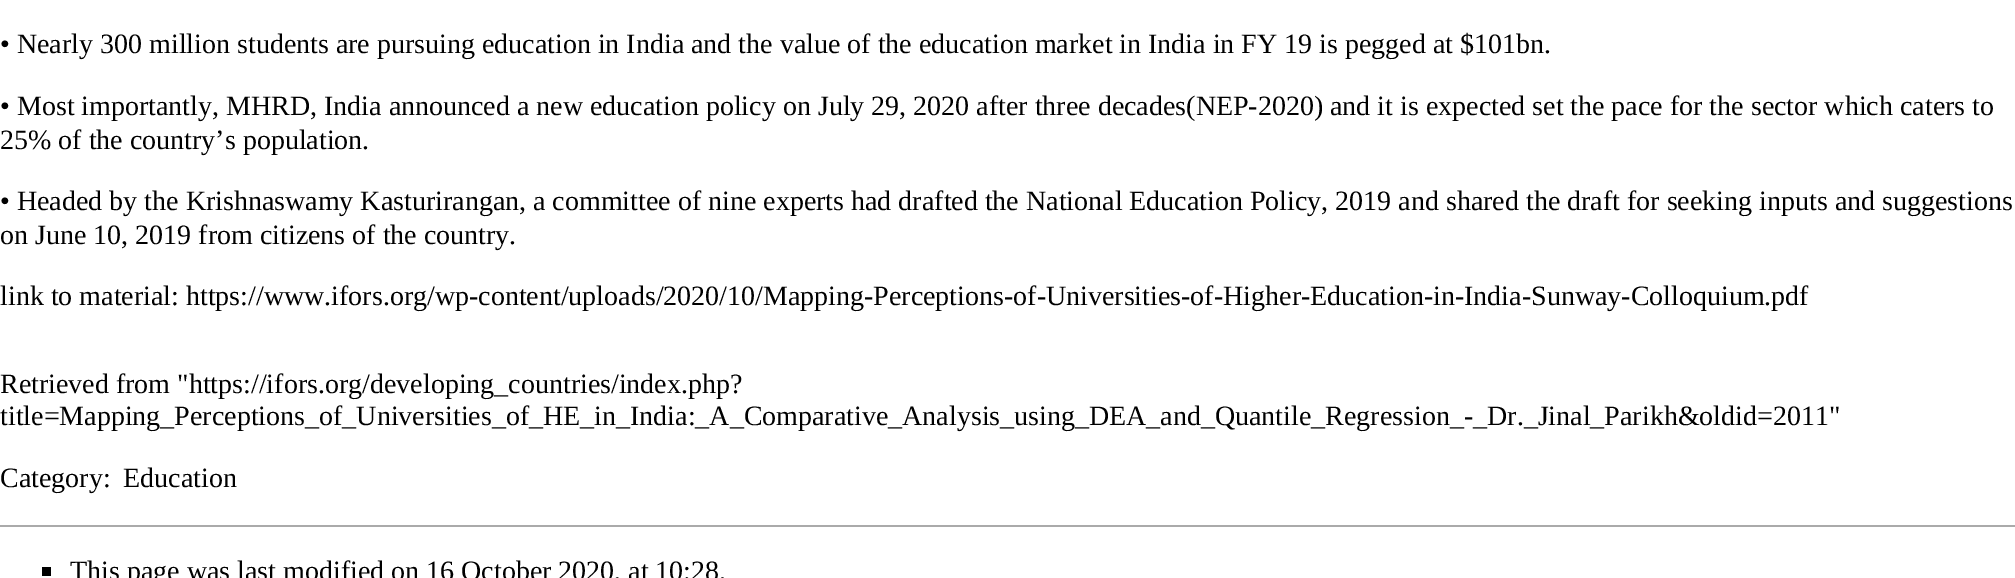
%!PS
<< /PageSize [2015 578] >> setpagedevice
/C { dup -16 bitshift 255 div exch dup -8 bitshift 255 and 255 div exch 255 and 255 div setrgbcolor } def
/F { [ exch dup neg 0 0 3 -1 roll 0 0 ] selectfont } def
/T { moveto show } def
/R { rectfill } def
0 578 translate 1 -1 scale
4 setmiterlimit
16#FFFFFF C
0 0 2015 578 R
/LiberationSerif-Regular 28 F
16#000000 C
(• Nearly 300 million students are pursuing education in India and the value of the education market in India in FY 19 is pegged at $101bn.) 0 53 T
(• Most importantly, MHRD, India announced a new education policy on July 29, 2020 after three decades\(NEP-2020\) and it is expected set the pace for the sector which caters to) 0 115 T
(25% of the country’s population.) 0 149 T
(• Headed by the Krishnaswamy Kasturirangan, a committee of nine experts had drafted the National Education Policy, 2019 and shared the draft for seeking inputs and suggestions) 0 210 T
(on June 10, 2019 from citizens of the country.) 0 244 T
(link to material: https://www.ifors.org/wp-content/uploads/2020/10/Mapping-Perceptions-of-Universities-of-Higher-Education-in-India-Sunway-Colloquium.pdf) 0 305 T
(Retrieved from "https://ifors.org/developing_countries/index.php?) 0 393 T
(title=Mapping_Perceptions_of_Universities_of_HE_in_India:_A_Comparative_Analysis_using_DEA_and_Quantile_Regression_-_Dr._Jinal_Parikh&oldid=2011") 0 425 T
(Category:) 0 487 T
(Education) 123 487 T
16#AAAAAA C
0 525 2015 2 R
16#000000 C
42 567 9 9 R
(This page was last modified on 16 October 2020, at 10:28.) 70 580 T
showpage
